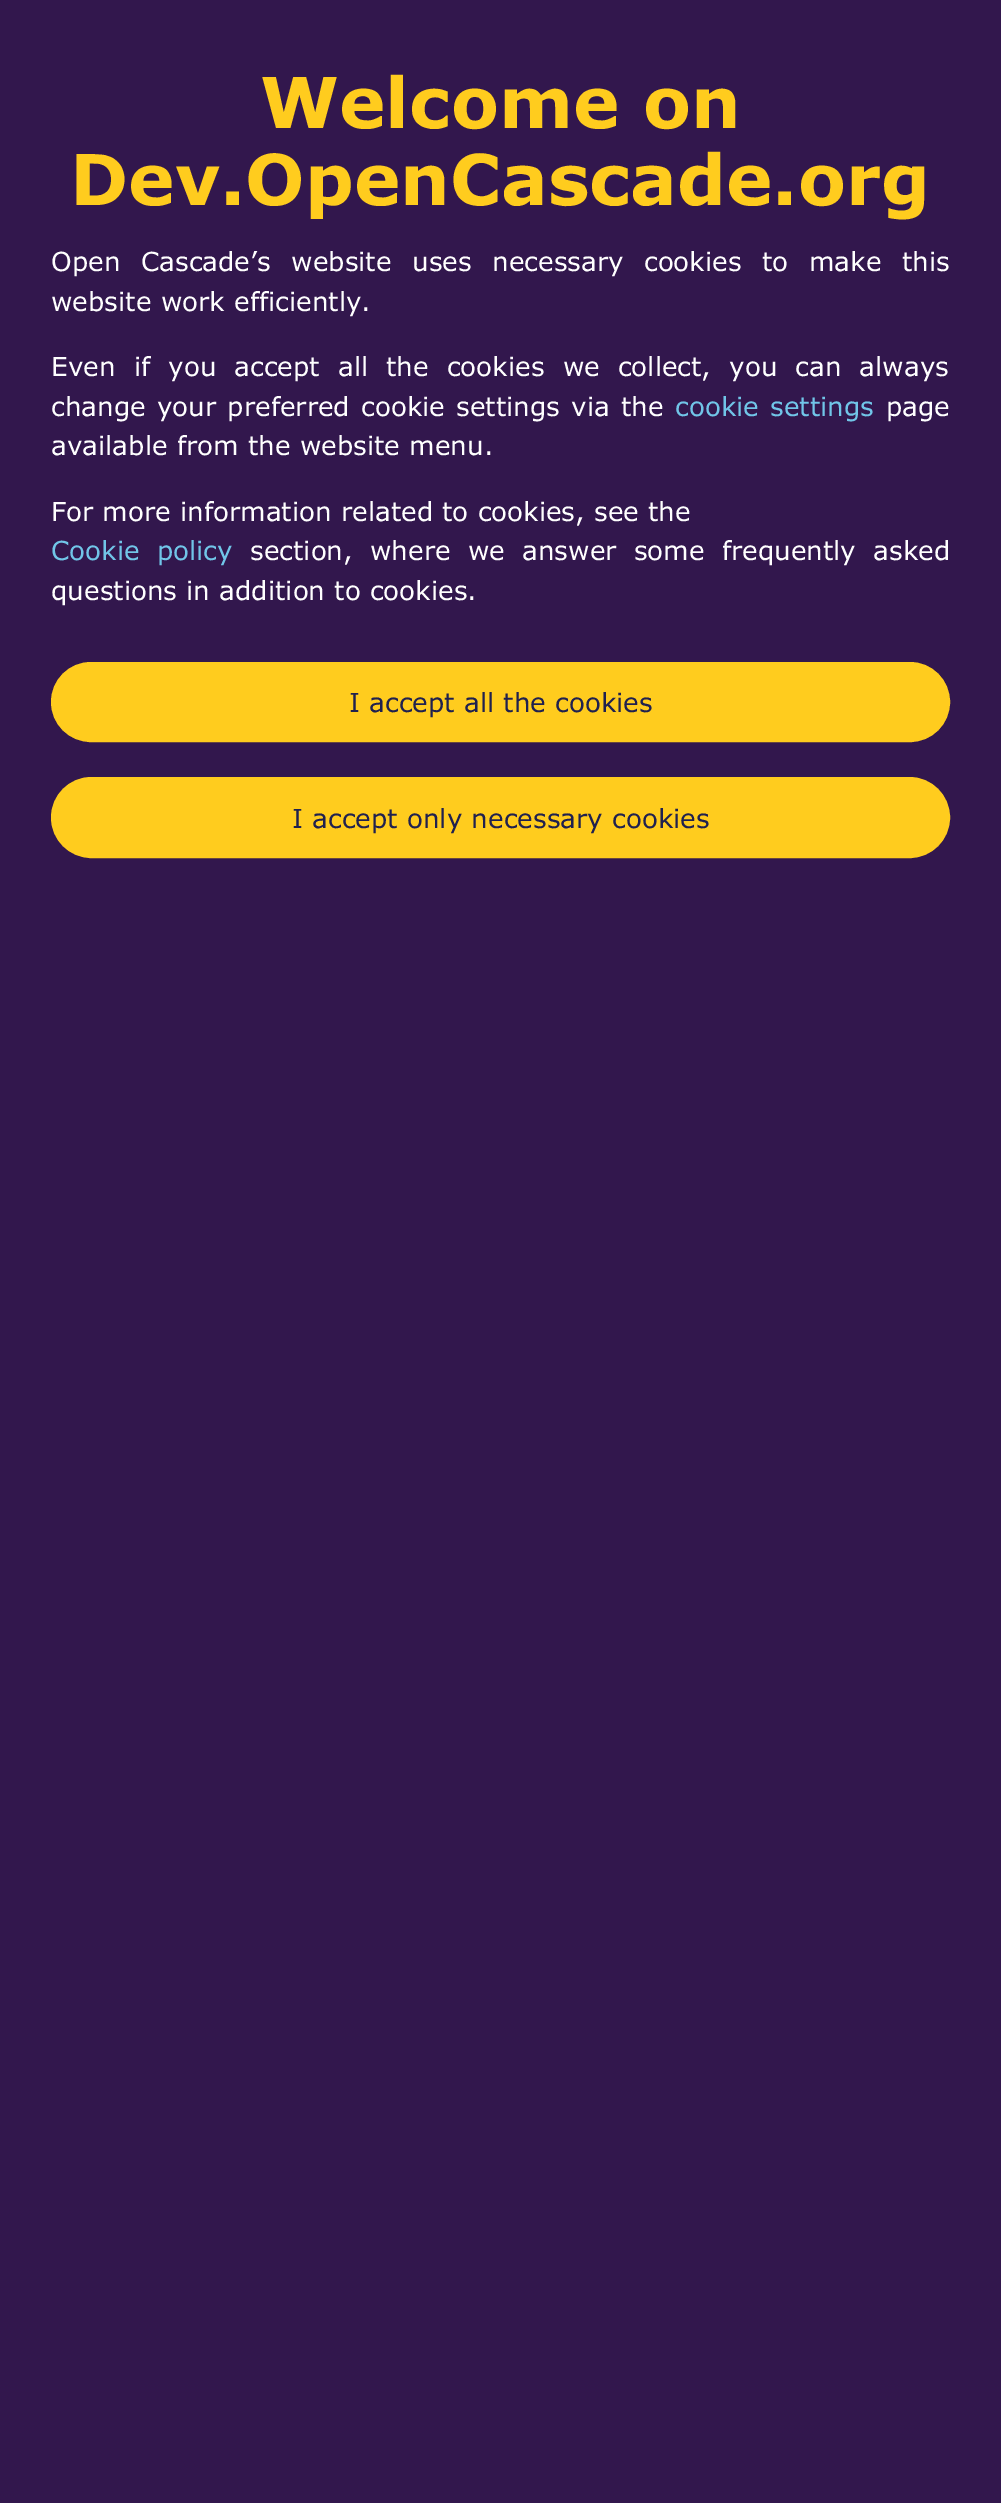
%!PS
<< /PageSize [1001 2503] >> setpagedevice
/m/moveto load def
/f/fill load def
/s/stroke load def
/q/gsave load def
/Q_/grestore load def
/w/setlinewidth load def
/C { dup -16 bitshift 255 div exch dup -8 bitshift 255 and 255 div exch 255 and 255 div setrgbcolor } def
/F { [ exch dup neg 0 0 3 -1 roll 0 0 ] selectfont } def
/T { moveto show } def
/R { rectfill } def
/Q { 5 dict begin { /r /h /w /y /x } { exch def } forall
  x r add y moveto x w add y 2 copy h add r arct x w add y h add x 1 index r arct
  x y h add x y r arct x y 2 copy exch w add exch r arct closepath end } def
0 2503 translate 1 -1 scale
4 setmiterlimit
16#32174D C
0 0 1001 2503 R
/Verdana-Bold 70 F
16#FFCC1E C
(Welcome on) 260 128 T
(Dev.OpenCascade.org) 70 205 T
/Verdana-Regular 26.25 F
16#FFFFFF C
51 271 m 11.25 0 32 (Open Cascade’s website uses necessary cookies to make this) widthshow
(website work efficiently.) 51 311 T
51 376 m 8.9 0 32 (Even if you accept all the cookies we collect, you can always) widthshow
51 416 m 2 0 32 (change your preferred cookie settings via the) widthshow
16#71C5E8 C
675 416 m 2 0 32 (cookie settings) widthshow
16#FFFFFF C
(page) 886 416 T
(available from the website menu.) 51 455 T
(For more information related to cookies, see the) 51 521 T
16#71C5E8 C
51 560 m 8 0 32 (Cookie policy) widthshow
16#FFFFFF C
250 560 m 8 0 32 (section, where we answer some frequently asked) widthshow
(questions in addition to cookies.) 51 600 T
16#FFCC1E C
52 663 897 78 39 Q q f Q_
2 w
s
16#20214F C
(I accept all the cookies) 349 712 T
16#FFCC1E C
52 778 897 79 39.5 Q q f Q_
s
16#20214F C
(I accept only necessary cookies) 292 828 T
showpage
